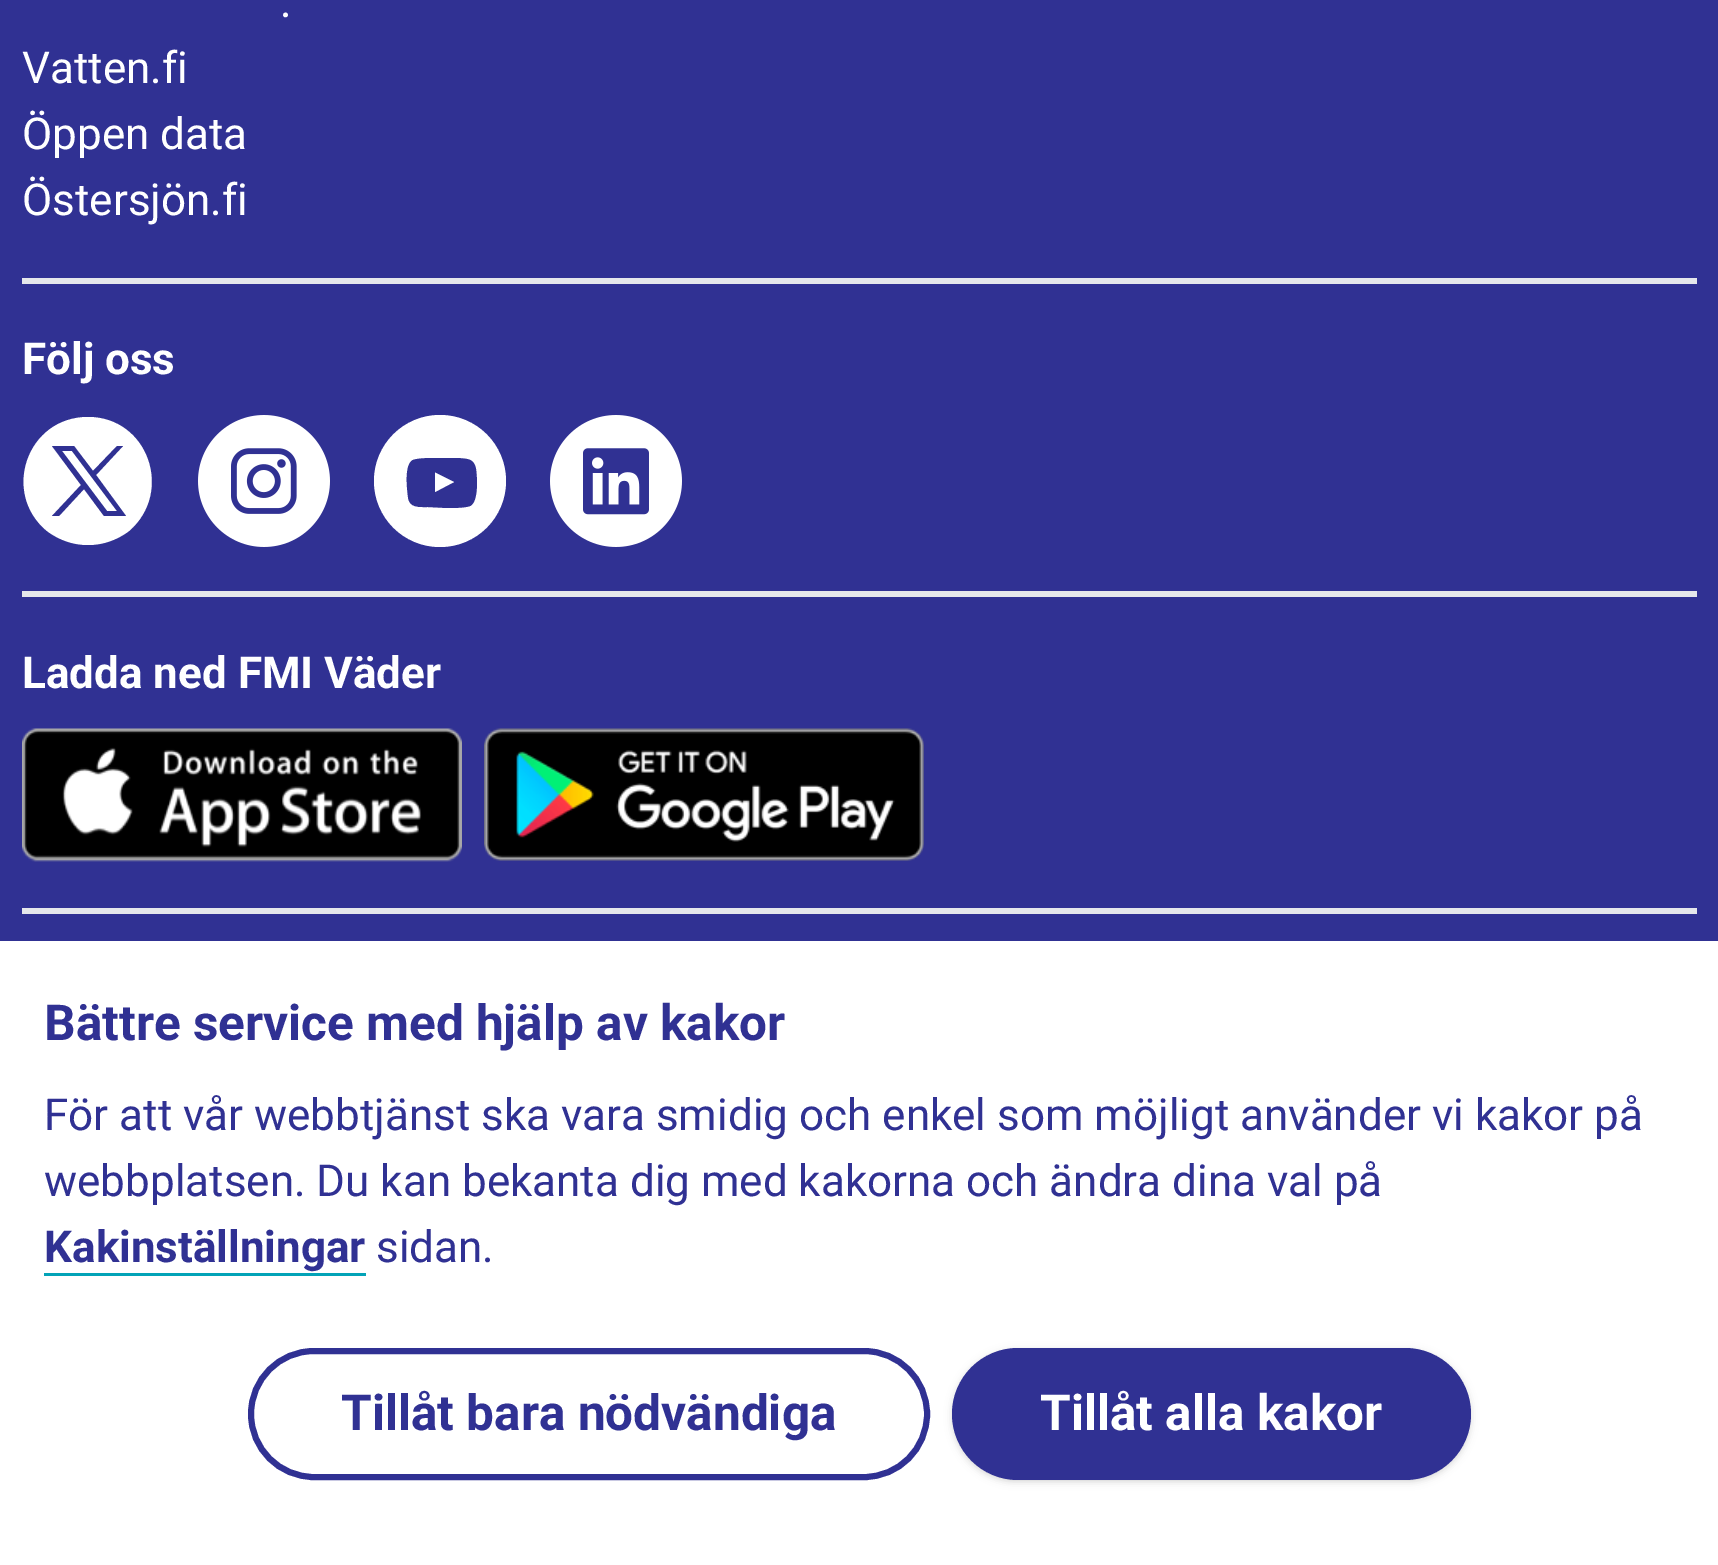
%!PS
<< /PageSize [1718 1565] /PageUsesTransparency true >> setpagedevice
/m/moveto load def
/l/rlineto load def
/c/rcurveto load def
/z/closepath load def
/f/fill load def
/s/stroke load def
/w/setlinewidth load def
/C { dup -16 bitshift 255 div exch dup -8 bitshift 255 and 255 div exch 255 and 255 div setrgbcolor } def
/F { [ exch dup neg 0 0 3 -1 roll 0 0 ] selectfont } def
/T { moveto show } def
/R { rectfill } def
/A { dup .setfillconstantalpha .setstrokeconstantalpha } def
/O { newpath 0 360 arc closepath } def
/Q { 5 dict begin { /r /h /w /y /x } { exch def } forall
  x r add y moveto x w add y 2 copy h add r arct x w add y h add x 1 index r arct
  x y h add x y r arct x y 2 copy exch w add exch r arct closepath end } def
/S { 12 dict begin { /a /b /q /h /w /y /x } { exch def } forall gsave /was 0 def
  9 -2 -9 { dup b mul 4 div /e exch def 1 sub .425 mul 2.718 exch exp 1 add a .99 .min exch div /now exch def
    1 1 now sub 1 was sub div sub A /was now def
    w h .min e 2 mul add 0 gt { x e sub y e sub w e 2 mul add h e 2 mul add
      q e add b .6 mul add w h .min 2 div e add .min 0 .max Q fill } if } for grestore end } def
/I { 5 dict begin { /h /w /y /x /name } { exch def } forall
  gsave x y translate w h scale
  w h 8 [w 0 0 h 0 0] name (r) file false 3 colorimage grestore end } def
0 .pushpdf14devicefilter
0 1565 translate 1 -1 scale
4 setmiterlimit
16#303193 C
0 0 1718 1565 R
16#E5E7EB C
22 908 1675 6 R
/Roboto-Regular 44 F
16#FFFFFF C
(.) 280 17 T
(Vatten.fi) 22 83 T
(Öppen data) 22 149 T
(Östersjön.fi) 22 215 T
16#E5E7EB C
22 278 1675 6 R
/Roboto-Bold 44 F
16#FFFFFF C
(Följ oss) 22 374 T
88 545 m -15 0 -29 -5 -41 -14 c -46 -38 -20 -114 41 -114 c 60 0 86 75 41 114 c -12 9 -26 14 -41 14 c z f
16#303193 C
52 446 m 29 39 l -29 31 l 7 0 l 25 -27 l 20 27 l 22 0 l -30 -41 l 27 -29 l -6 0 l -24 25 l -19 -25 l z 62 451 m 10 0 l 45 60 l -10 0 l z f
(1.rgb) 198 415 132 132 I
16#FFFFFF C
440 481 66 O f
16#303193 C
476 469 m -2 -11 -9 -10 -18 -11 c -21 0 l -6 0 -19 0 -24 2 c -9 4 -6 29 -5 37 c 1 11 11 10 20 10 c 19 1 l 5 0 18 0 23 -2 c 9 -4 7 -30 6 -37 c z eofill
16#FFFFFF C
435 492 m 0 -19.5 l 19 9.5 l z f
(2.rgb) 550 415 132 132 I
16#E5E7EB C
22 591 1675 6 R
16#FFFFFF C
(Ladda ned FMI Väder) 22 688 T
(3.rgb) 22 728 440 134 I
(4.rgb) 484 728 440 133 I
0 941 1718 624 R
/Roboto-Bold 49.5 F
16#303193 C
(Bättre service med hjälp av kakor) 44 1040 T
/Roboto-Regular 44 F
(För att vår webbtjänst ska vara smidig och enkel som möjligt använder vi kakor på) 44 1130 T
(webbplatsen. Du kan bekanta dig med kakorna och ändra dina val på) 44 1196 T
/Roboto-Bold 44 F
(Kakinställningar) 44 1262 T
16#02A3B7 C
44 1273 322 3 R
/Roboto-Regular 44 F
16#303193 C
(sidan.) 376 1262 T
6 w
251 1351 676 126 63 Q s
/Roboto-Bold 49.5 F
(Tillåt bara nödvändiga) 341 1430 T
16#000000 C
954 1353 515 127 63.5 3 .1 S
952 1350 519 132 66 4 .1 S
16#303193 C
952 1348 519 132 66 Q f
16#FFFFFF C
(Tillåt alla kakor) 1040 1430 T
.poppdf14devicefilter showpage
